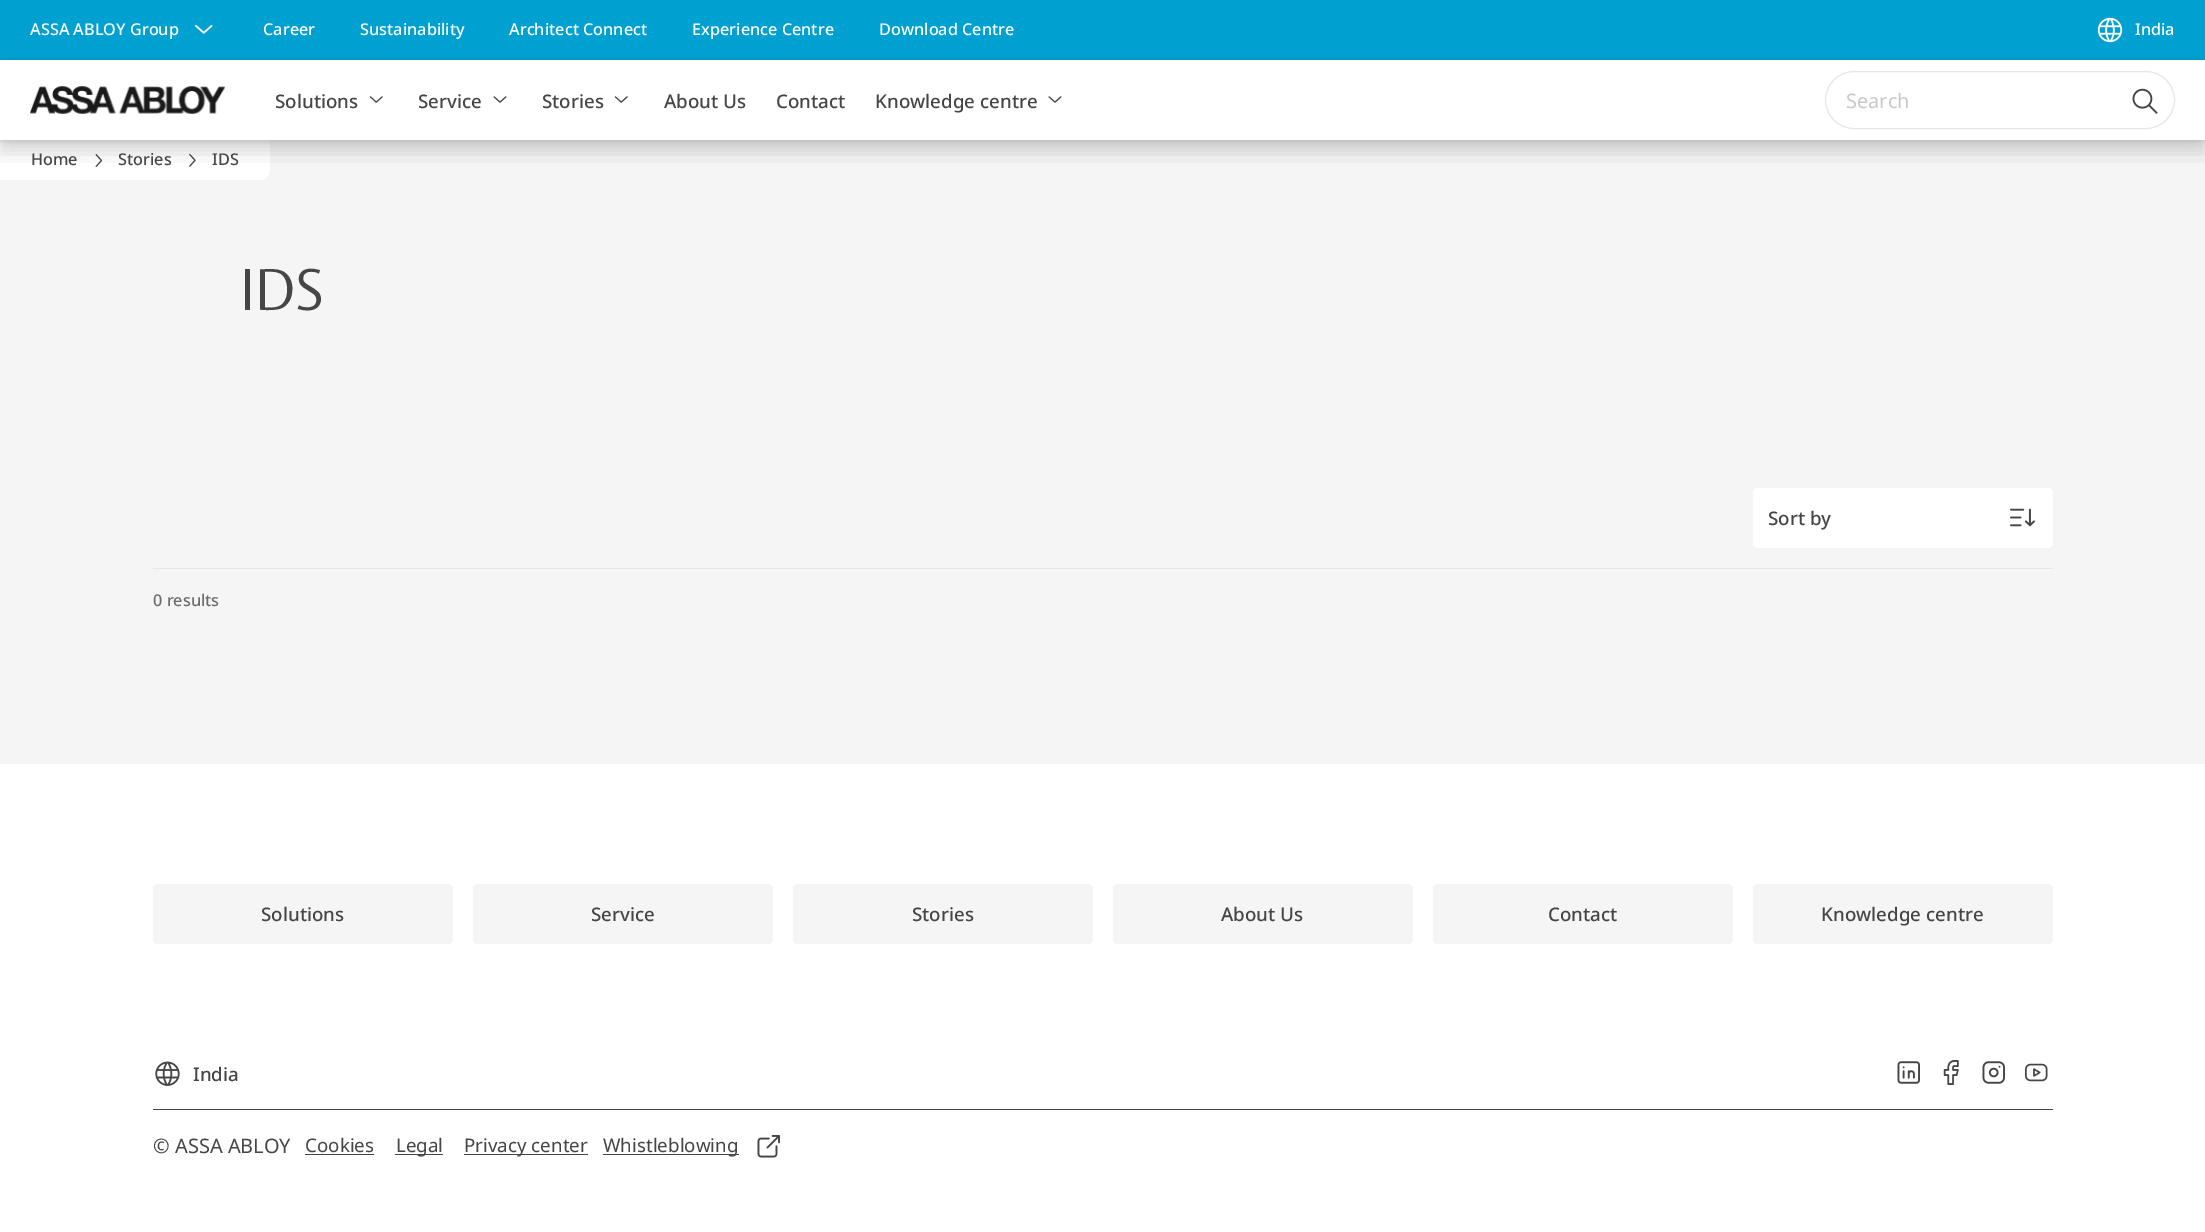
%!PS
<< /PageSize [2205 1232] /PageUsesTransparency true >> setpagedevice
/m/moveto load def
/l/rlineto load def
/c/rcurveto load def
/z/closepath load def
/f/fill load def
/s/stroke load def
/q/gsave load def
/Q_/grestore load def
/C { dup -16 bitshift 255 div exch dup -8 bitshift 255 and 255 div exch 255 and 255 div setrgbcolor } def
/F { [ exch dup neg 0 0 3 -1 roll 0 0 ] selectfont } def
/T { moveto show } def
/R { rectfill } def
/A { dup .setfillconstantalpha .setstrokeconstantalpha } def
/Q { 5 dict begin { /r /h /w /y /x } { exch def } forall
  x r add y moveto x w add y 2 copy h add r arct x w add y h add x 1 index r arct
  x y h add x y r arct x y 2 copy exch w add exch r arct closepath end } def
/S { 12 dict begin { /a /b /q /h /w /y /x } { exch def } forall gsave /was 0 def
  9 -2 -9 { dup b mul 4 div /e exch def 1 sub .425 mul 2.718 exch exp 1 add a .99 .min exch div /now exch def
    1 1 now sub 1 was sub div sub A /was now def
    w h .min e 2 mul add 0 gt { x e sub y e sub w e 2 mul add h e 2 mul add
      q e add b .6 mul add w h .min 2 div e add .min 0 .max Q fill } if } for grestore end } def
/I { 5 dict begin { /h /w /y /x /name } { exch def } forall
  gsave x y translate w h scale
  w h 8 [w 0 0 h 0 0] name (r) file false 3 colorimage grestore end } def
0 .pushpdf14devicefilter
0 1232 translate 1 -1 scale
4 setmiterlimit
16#FFFFFF C
0 0 2205 1232 R
16#00A0D0 C
0 0 2205 60 R
/NotoSans-Medium 16.25 F
16#FFFFFF C
(ASSA ABLOY Group) 30 35 T
(1.rgb) 195 25 18 9 I
(Career) 263 35 T
(Sustainability) 360 35 T
(Architect Connect) 509 35 T
(Experience Centre) 692 35 T
(Download Centre) 879 35 T
(2.rgb) 2097 17 26 26 I
(India) 2135 35 T
(3.rgb) 30 86 195 28 I
(4.rgb) 369 96 14 7 I
(5.rgb) 493 96 14 7 I
(4.rgb) 614 96 14 7 I
(5.rgb) 1048 96 14 7 I
16#E6E6E6 C
1825.5 71.5 349 57 28.5 Q s
(6.rgb) 2132 88 26 26 I
16#F5F5F5 C
0 140 2205 624 R
16#FFFFFF C
0 140 m 270 0 l 0 30 l 0 5.5 -4.5 10 -10 10 c -260 0 l z f
q
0 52 m 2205 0 l 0 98 l -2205 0 l z 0 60 m 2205 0 l 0 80 l -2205 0 l z eoclip newpath
16#000000 C
0 61 2205 80 0 2.5 .15 S
Q_
(7.rgb) 95 154 8 13 I
(8.rgb) 189 153 7 14 I
q
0 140 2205 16 rectclip
16#000000 C
0 70 2205 80 0 7.5 .1 S
Q_
q
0 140 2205 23 rectclip
16#000000 C
0 80 2205 80 0 12.5 .05 S
Q_
/NotoSans-Medium 18.75 F
16#464646 C
(Solutions) 275 108 T
(Service) 418 108 T
(Stories) 542 108 T
(About Us) 664 108 T
(Contact) 776 108 T
(Knowledge centre) 875 108 T
/NotoSans-Regular 20 F
16#C8C8C8 C
(Search) 1846 108 T
/NotoSans-Medium 16.25 F
16#464646 C
(Home) 31 165 T
(Stories) 118 165 T
(IDS) 212 165 T
/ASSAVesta-Light 58 F
(IDS) 240 310 T
16#FFFFFF C
1753 488 300 60 5 Q f
/NotoSans-Medium 18.75 F
16#464646 C
(Sort by) 1768 525 T
(9.rgb) 2010 508 25 19 I
16#E6E6E6 C
153 568 1900 1 R
/NotoSans-Medium 16.25 F
16#6C6C6C C
(0 results) 153 606 T
16#F5F5F5 C
153 884 300 60 5 Q f
/NotoSans-Medium 18.75 F
16#464646 C
(Solutions) 261 921 T
16#F5F5F5 C
473 884 300 60 5 Q f
16#464646 C
(Service) 591 921 T
16#F5F5F5 C
793 884 300 60 5 Q f
16#464646 C
(Stories) 912 921 T
16#F5F5F5 C
1113 884 300 60 5 Q f
16#464646 C
(About Us) 1221 921 T
16#F5F5F5 C
1433 884 300 60 5 Q f
16#464646 C
(Contact) 1548 921 T
16#F5F5F5 C
1753 884 300 60 5 Q f
16#464646 C
(Knowledge centre) 1821 921 T
(10.rgb) 155 1061 25 25 I
(India) 193 1081 T
(11.rgb) 1897 1061 23 23 I
(12.rgb) 1943 1060 16 25 I
(13.rgb) 1982 1061 23 23 I
(14.rgb) 2025 1063 23 19 I
153 1109 1900 1 R
/NotoSans-Regular 20 F
(© ASSA ABLOY) 153 1153 T
/NotoSans-Regular 18.75 F
(Cookies) 305 1152 T
305 1154 69 1 R
395 1154 48 1 R
(Legal) 396 1152 T
464 1154 124 1 R
(Privacy center) 464 1152 T
603 1154 136 1 R
(Whistleblowing) 603 1152 T
(15.rgb) 757 1135 23 23 I
.poppdf14devicefilter showpage
